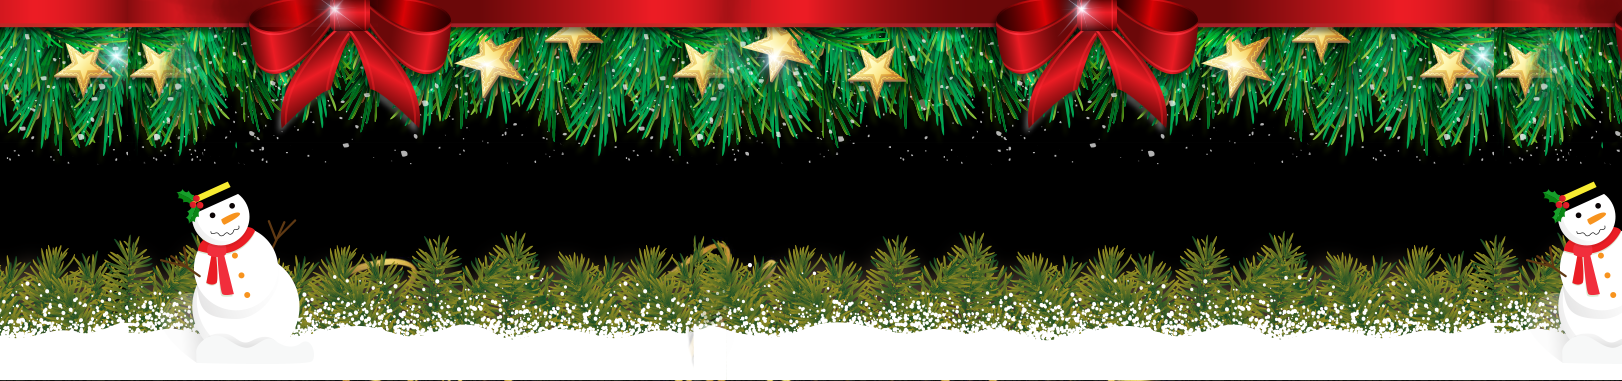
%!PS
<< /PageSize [1622 381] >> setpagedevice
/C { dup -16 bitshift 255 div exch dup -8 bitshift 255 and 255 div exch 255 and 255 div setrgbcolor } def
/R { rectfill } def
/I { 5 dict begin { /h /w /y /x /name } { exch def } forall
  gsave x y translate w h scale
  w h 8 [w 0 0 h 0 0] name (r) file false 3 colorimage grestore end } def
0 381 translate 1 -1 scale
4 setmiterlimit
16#000000 C
0 0 1622 381 R
(1.rgb) 0 0 1622 165 I
(3.rgb) 259 237 990 144 I
(2.rgb) 0 181 1622 200 I
showpage
